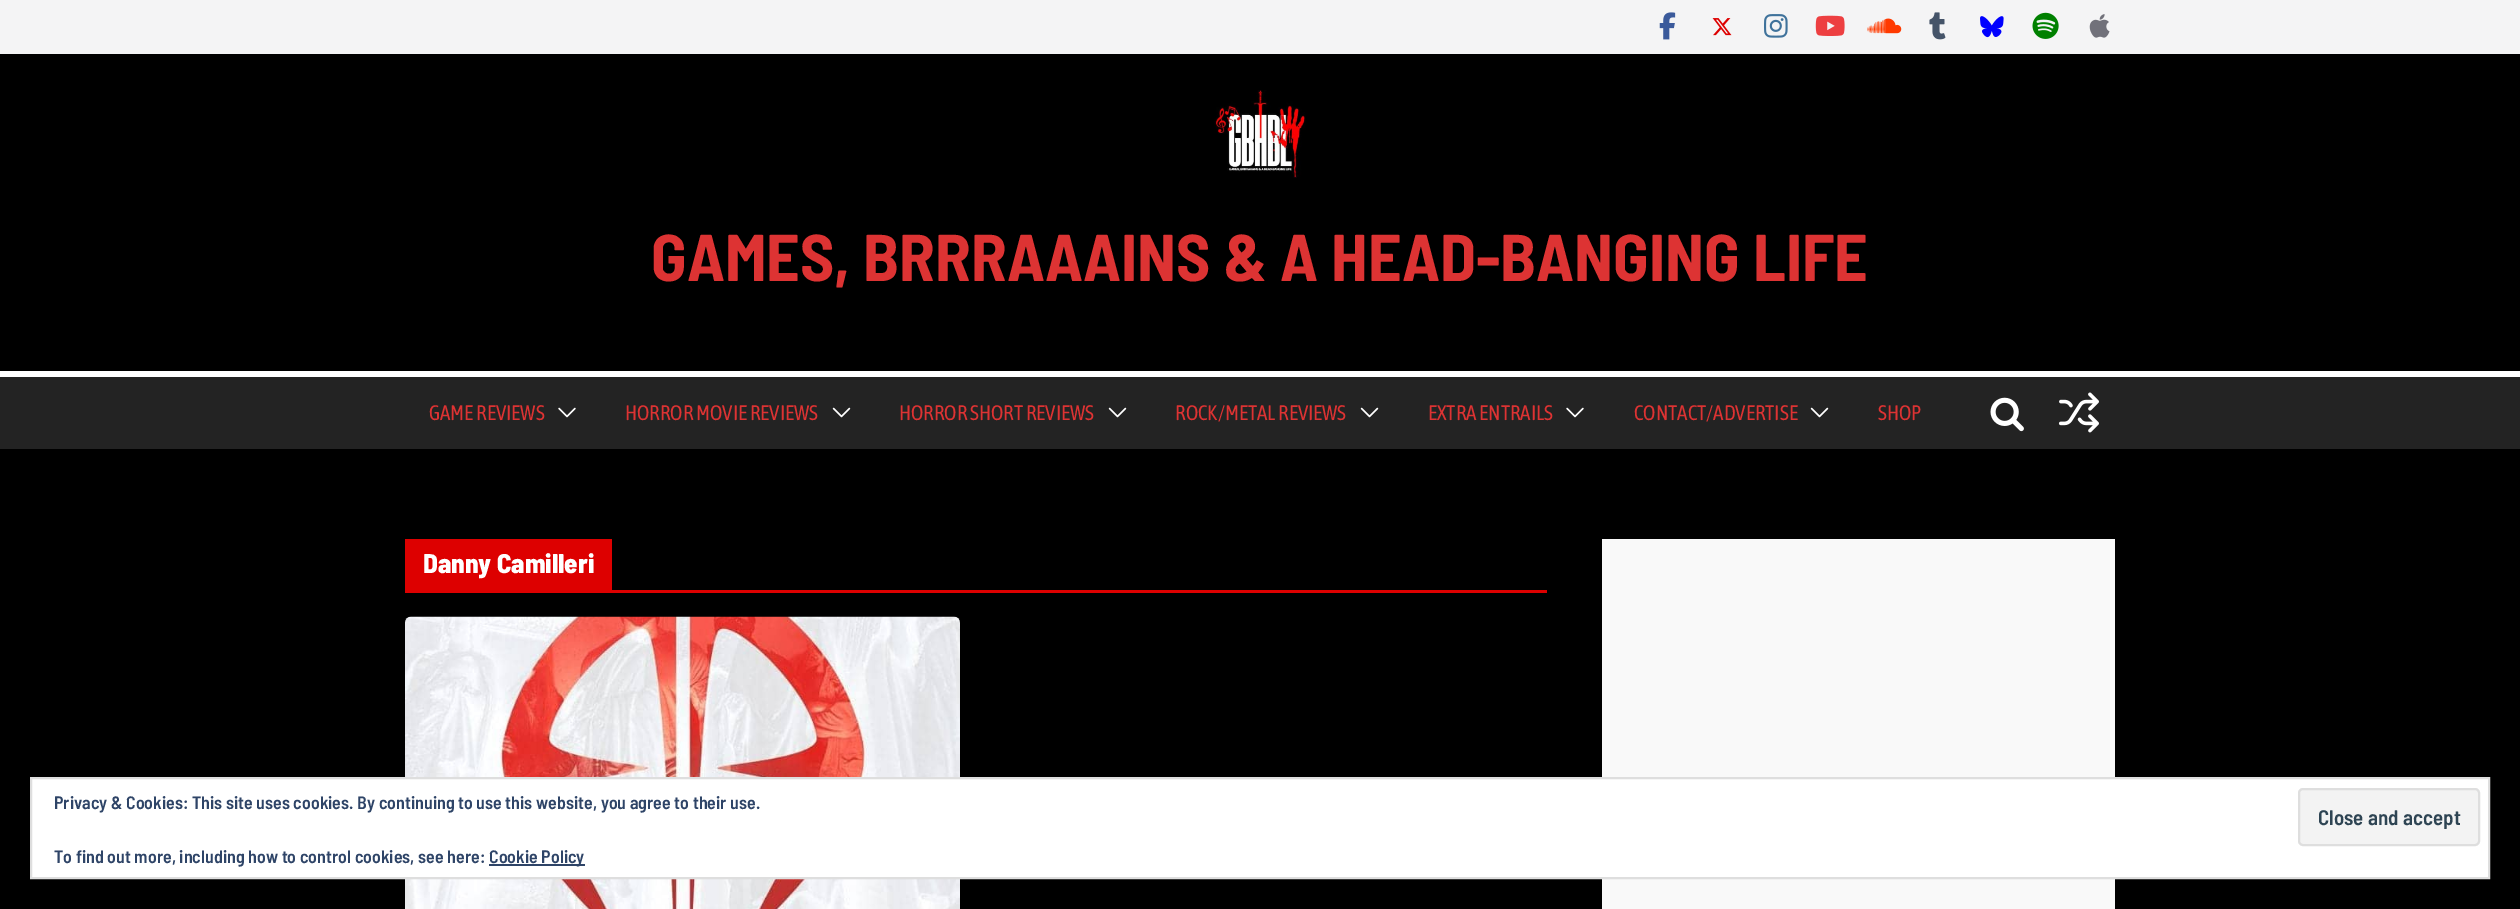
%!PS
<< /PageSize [2520 909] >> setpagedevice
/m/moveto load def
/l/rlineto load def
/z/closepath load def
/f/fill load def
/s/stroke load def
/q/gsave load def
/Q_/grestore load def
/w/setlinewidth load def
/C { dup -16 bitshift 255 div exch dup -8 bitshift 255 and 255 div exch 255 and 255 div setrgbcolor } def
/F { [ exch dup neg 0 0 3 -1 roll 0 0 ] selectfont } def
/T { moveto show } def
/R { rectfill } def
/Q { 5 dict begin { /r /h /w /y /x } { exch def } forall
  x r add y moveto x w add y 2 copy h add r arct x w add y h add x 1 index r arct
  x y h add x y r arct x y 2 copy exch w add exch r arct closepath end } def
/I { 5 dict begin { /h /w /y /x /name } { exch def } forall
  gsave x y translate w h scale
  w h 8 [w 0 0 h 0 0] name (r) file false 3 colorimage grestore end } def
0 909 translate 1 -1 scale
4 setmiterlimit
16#000000 C
0 0 2520 909 R
16#F4F4F5 C
0 0 2520 54 R
(1.rgb) 1659 12 17 28 I
(2.rgb) 1712 18 20 18 I
(3.rgb) 1764 14 24 24 I
(4.rgb) 1815 15 30 21 I
(5.rgb) 1867 18 35 16 I
(6.rgb) 1929 12 17 28 I
(7.rgb) 1980 16 24 22 I
(8.rgb) 2032 12 27 27 I
(9.rgb) 2089 14 21 24 I
(10.rgb) 1214 90 92 88 I
/BarlowSemiCondensed-Bold 66 F
16#DD3333 C
(GAMES, BRRRAAAINS & A HEAD-BANGING LIFE) 651 281 T
16#232323 C
0 377 2520 72 R
16#FFFFFF C
0 371 2520 6 R
/AsapCondensed-Regular 21 F
16#DD3333 C
(GAME REVIEWS) 429 420 T
(11.rgb) 558 407 18 11 I
(HORROR MOVIE REVIEWS) 625 420 T
(12.rgb) 832 407 19 11 I
(HORROR SHORT REVIEWS) 899 420 T
(12.rgb) 1108 407 19 11 I
(ROCK/METAL REVIEWS) 1175 420 T
(12.rgb) 1360 407 19 11 I
(EXTRA ENTRAILS) 1428 420 T
(11.rgb) 1566 407 18 11 I
(CONTACT/ADVERTISE) 1634 420 T
(12.rgb) 1810 407 19 11 I
(SHOP) 1878 420 T
(13.rgb) 1990 397 34 35 I
(14.rgb) 2058 392 41 41 I
16#DD0000 C
405 590 1142 3 R
405 539 207 51 R
/BarlowSemiCondensed-ExtraBold 27 F
16#FFFFFF C
(Danny Camilleri) 423 573 T
(15.rgb) 405 616 555 293 I
16#F9F9F9 C
1602 539 513 370 R
16#FFFFFF C
31 778 m 2458 0 l 0 100 l -2458 0 l z q f Q_
16#DEDEDE C
2 w
s
/BarlowSemiCondensed-SemiBold 18 F
16#2E4467 C
(Privacy & Cookies: This site uses cookies. By continuing to use this website, you agree to their use.) 54 809 T
16#F3F3F3 C
2299 789 180 56 4 Q q f Q_
16#DEDEDE C
s
/BarlowSemiCondensed-SemiBold 21 F
16#2E4453 C
(Close and accept) 2318 825 T
/BarlowSemiCondensed-SemiBold 18 F
16#2E4467 C
(To find out more, including how to control cookies, see here:) 54 863 T
489 864 96 2 R
(Cookie Policy) 489 863 T
showpage
